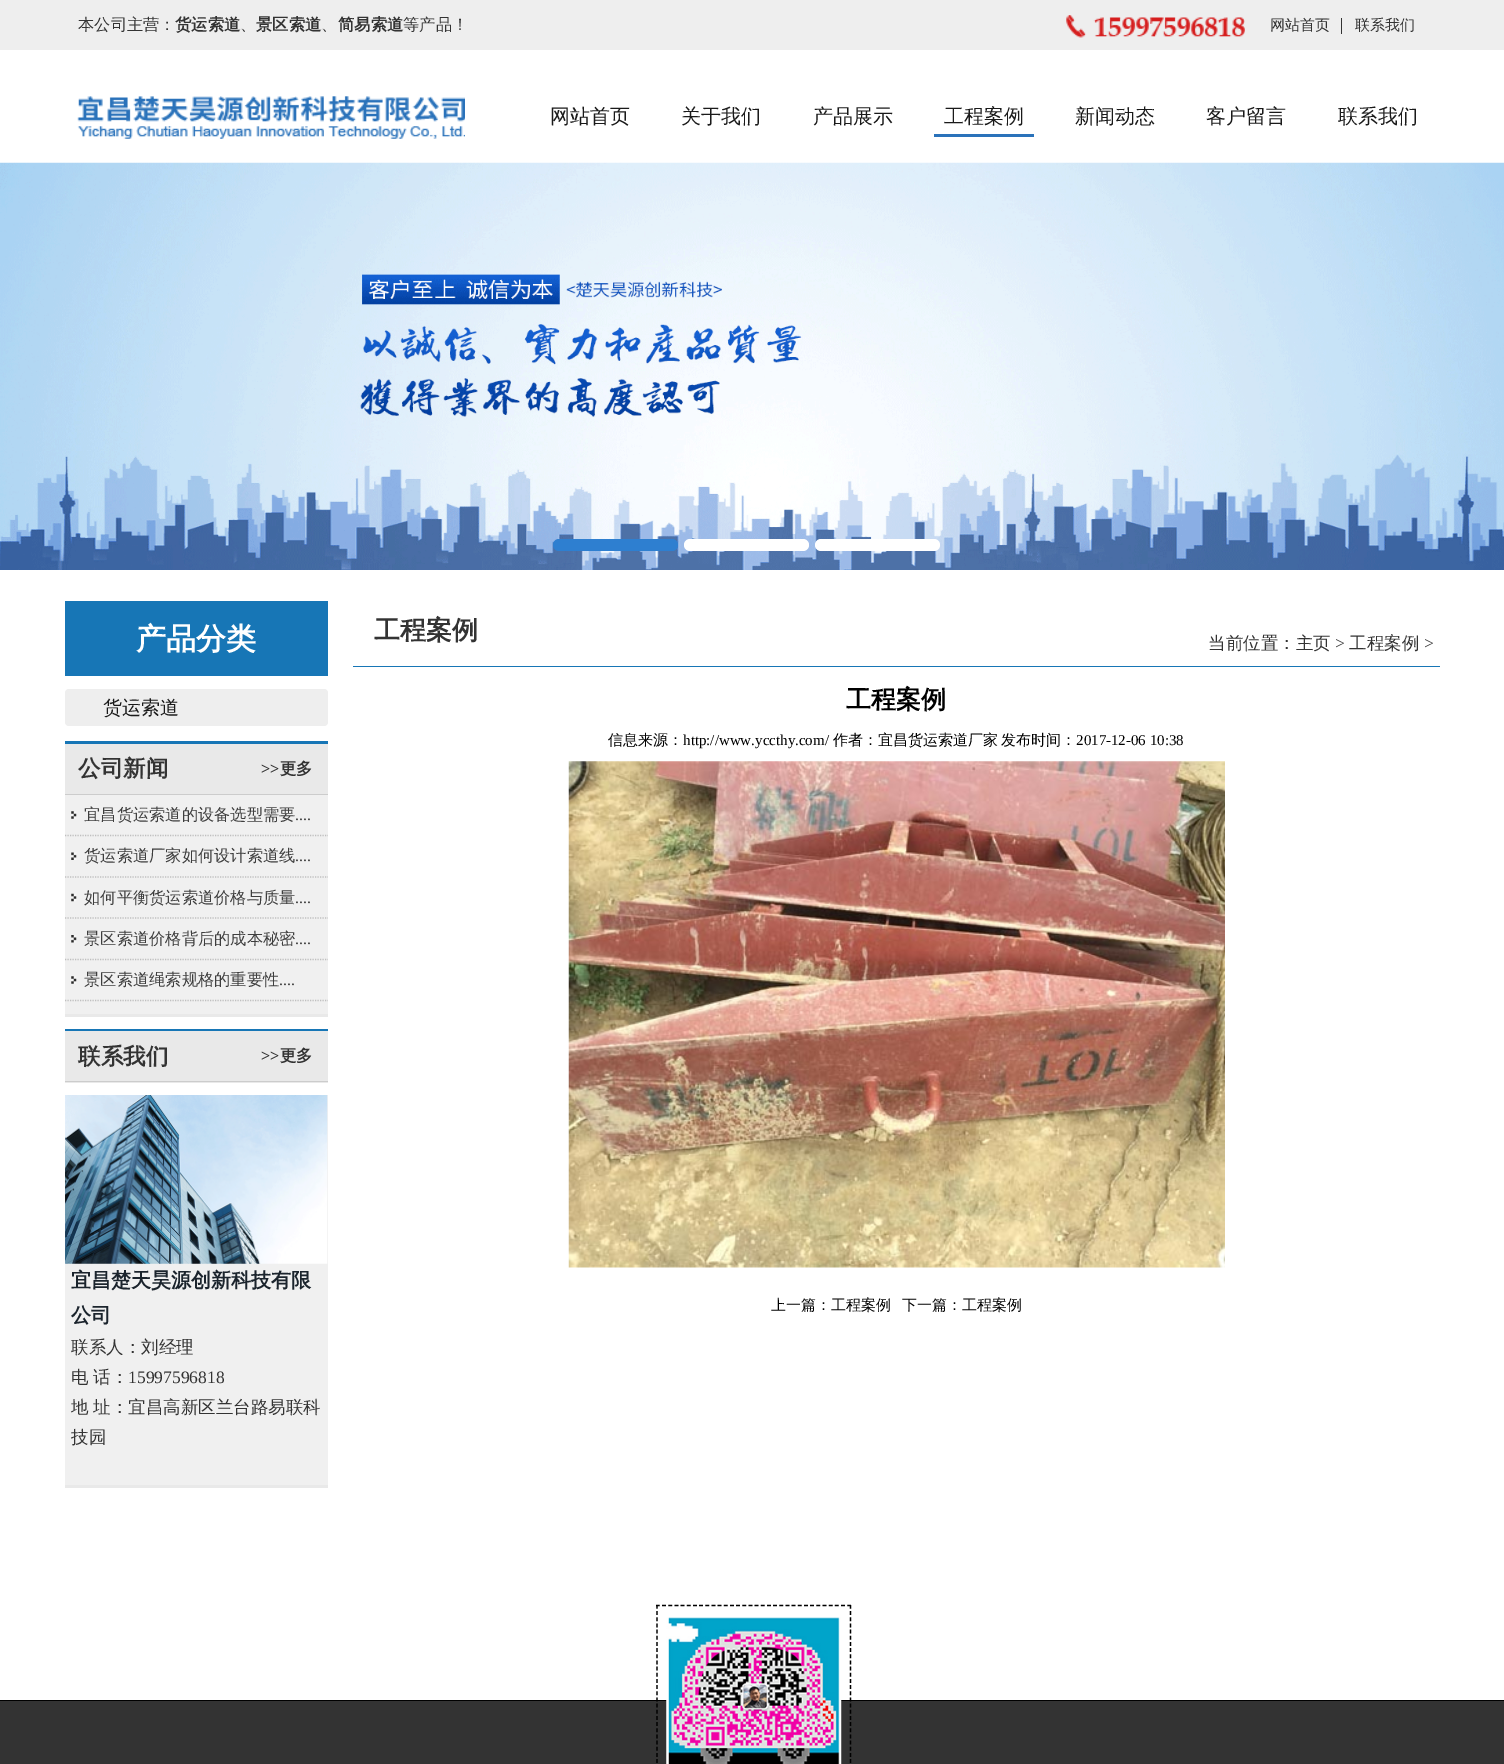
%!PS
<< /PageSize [1504 1764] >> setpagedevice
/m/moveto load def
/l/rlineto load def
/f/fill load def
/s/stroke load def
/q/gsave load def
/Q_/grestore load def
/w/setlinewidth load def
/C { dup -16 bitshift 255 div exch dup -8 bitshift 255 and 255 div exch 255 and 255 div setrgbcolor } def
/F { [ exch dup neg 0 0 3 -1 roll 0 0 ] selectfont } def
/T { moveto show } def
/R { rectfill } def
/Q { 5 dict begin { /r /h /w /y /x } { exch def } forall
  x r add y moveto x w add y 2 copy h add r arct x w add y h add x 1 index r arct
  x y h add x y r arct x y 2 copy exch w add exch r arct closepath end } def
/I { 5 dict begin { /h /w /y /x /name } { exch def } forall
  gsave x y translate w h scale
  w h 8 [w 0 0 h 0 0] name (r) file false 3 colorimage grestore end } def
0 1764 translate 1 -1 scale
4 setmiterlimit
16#FFFFFF C
0 0 1504 1764 R
16#EEEEEE C
0 0 1504 50 R
/WenQuanYiZenHei-Medium 16.25 F
16#333333 C
(本公司主营：) 78 30 T
/WenQuanYiZenHei-Bold 16.25 F
(货运索道) 175 30 T
/WenQuanYiZenHei-Medium 16.25 F
(、) 240 30 T
/WenQuanYiZenHei-Bold 16.25 F
(景区索道) 256 30 T
/WenQuanYiZenHei-Medium 16.25 F
(、) 321 30 T
/WenQuanYiZenHei-Bold 16.25 F
(简易索道) 338 30 T
/WenQuanYiZenHei-Medium 16.25 F
(等产品！) 403 30 T
(1.rgb) 1066 15 179 23 I
/WenQuanYiZenHei-Medium 15 F
(网站首页) 1270 30 T
1341 18 1 16 R
(联系我们) 1355 30 T
(2.rgb) 77 96 388 43 I
/WenQuanYiZenHei-Medium 20 F
16#1A1A1A C
(网站首页) 550 123 T
(关于我们) 681 123 T
(产品展示) 813 123 T
16#2A72BA C
934 134 100 3 R
16#1A1A1A C
(工程案例) 944 123 T
(新闻动态) 1075 123 T
(客户留言) 1206 123 T
(联系我们) 1338 123 T
(3.rgb) 0 162 1504 408 I
16#2E7FD0 C
553 539 125 12 6 Q f
16#FFFFFF C
684 539 125 12 6 Q f
815 539 125 12 6 Q f
16#1776B6 C
65 601 263 75 R
/WenQuanYiZenHei-Bold 30 F
16#FFFFFF C
(产品分类) 136 649 T
16#EEEEEE C
65 689 263 37 4 Q f
/WenQuanYiZenHei-Medium 19 F
16#1A1A1A C
(货运索道) 103 714 T
16#1776B6 C
65 741 263 3 R
16#E9E9E9 C
65 744 263 50 R
16#CCCCCC C
65 794 263 1 R
/WenQuanYiZenHei-Bold 22.5 F
16#333333 C
(公司新闻) 78 776 T
/LiberationSerif-Bold 16.25 F
(>>) 261 774 T
/WenQuanYiZenHei-Bold 16.25 F
(更多) 280 774 T
16#F0F0F0 C
65 795 263 219 R
16#E9E9E9 C
65 1014 263 3 R
(4.rgb) 71 811 6 8 I
q
65 570 263 918 rectclip
16#BFBFBF C
1.2 w
[1.25 1.25] 0 setdash
65 835.5 m 276 0 l s
Q_
/WenQuanYiZenHei-Medium 16.25 F
16#3E3E3E C
(宜昌货运索道的设备选型需要) 84 820 T
/LiberationSerif-Regular 16.25 F
(....) 295 820 T
(5.rgb) 71 852 6 8 I
q
65 570 263 918 rectclip
16#BFBFBF C
1.2 w
[1.25 1.25] 0 setdash
65 877 m 276 0 l s
Q_
/WenQuanYiZenHei-Medium 16.25 F
(货运索道厂家如何设计索道线) 84 861 T
/LiberationSerif-Regular 16.25 F
(....) 295 861 T
(6.rgb) 71 893 6 9 I
q
65 570 263 918 rectclip
16#BFBFBF C
1.2 w
[1.25 1.25] 0 setdash
65 918 m 276 0 l s
Q_
/WenQuanYiZenHei-Medium 16.25 F
(如何平衡货运索道价格与质量) 84 903 T
/LiberationSerif-Regular 16.25 F
(....) 295 903 T
(7.rgb) 71 935 6 8 I
q
65 570 263 918 rectclip
16#BFBFBF C
1.2 w
[1.25 1.25] 0 setdash
65 959.5 m 276 0 l s
Q_
/WenQuanYiZenHei-Medium 16.25 F
(景区索道价格背后的成本秘密) 84 944 T
/LiberationSerif-Regular 16.25 F
(....) 295 944 T
(4.rgb) 71 976 6 8 I
q
65 570 263 918 rectclip
16#BFBFBF C
1.2 w
[1.25 1.25] 0 setdash
65 1000.5 m 276 0 l s
Q_
/WenQuanYiZenHei-Medium 16.25 F
(景区索道绳索规格的重要性) 84 985 T
/LiberationSerif-Regular 16.25 F
(....) 279 985 T
16#1776B6 C
65 1029 263 2 R
16#E9E9E9 C
65 1031 263 52 R
16#CCCCCC C
65 1081 263 1 R
/WenQuanYiZenHei-Bold 22.5 F
16#333333 C
(联系我们) 78 1064 T
/LiberationSerif-Bold 16.25 F
(>>) 261 1061 T
/WenQuanYiZenHei-Bold 16.25 F
(更多) 280 1061 T
16#F0F0F0 C
65 1095 263 390 R
16#E9E9E9 C
65 1485 263 3 R
(8.rgb) 65 1095 263 169 I
/WenQuanYiZenHei-Bold 20 F
16#1B242D C
(宜昌楚天昊源创新科技有限) 71 1287 T
(公司) 71 1322 T
/WenQuanYiZenHei-Medium 17.5 F
16#333333 C
(联系人：刘经理) 71 1353 T
(电) 71 1383 T
(话：) 93 1383 T
/LiberationSerif-Regular 17.5 F
(15997596818) 128 1383 T
/WenQuanYiZenHei-Medium 17.5 F
(地) 71 1413 T
(址：宜昌高新区兰台路易联科) 93 1413 T
(技园) 71 1443 T
16#1776B6 C
353 666 1087 1 R
/WenQuanYiZenHei-Bold 26 F
16#333333 C
(工程案例) 374 639 T
/WenQuanYiZenHei-Medium 17.5 F
(当前位置：主页) 1208 649 T
/LiberationSerif-Regular 17.5 F
(>) 1335 649 T
/WenQuanYiZenHei-Medium 17.5 F
(工程案例) 1349 649 T
/LiberationSerif-Regular 17.5 F
(>) 1424 649 T
/WenQuanYiZenHei-Bold 25 F
16#000000 C
(工程案例) 846 708 T
/WenQuanYiZenHei-Medium 15 F
(信息来源：) 608 745 T
/LiberationSerif-Regular 15 F
(http://www.yccthy.com/) 683 745 T
/WenQuanYiZenHei-Medium 15 F
(作者：宜昌货运索道厂家) 833 745 T
(发布时间：) 1001 745 T
/LiberationSerif-Regular 15 F
(2017-12-06 10:38) 1076 745 T
(9.rgb) 568 761 657 507 I
/WenQuanYiZenHei-Medium 15 F
(上一篇：工程案例) 771 1310 T
(下一篇：工程案例) 902 1310 T
16#333333 C
0 1701 1504 63 R
16#000000 C
0 1700 1504 1 R
1.2 w
[3.75 2.42] 0 setdash
656 1605.5 m 195 0 l s
850.5 1605 m 0 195 l s
657 1605 m 0 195 l s
(10.rgb) 666 1617 176 147 I
showpage
